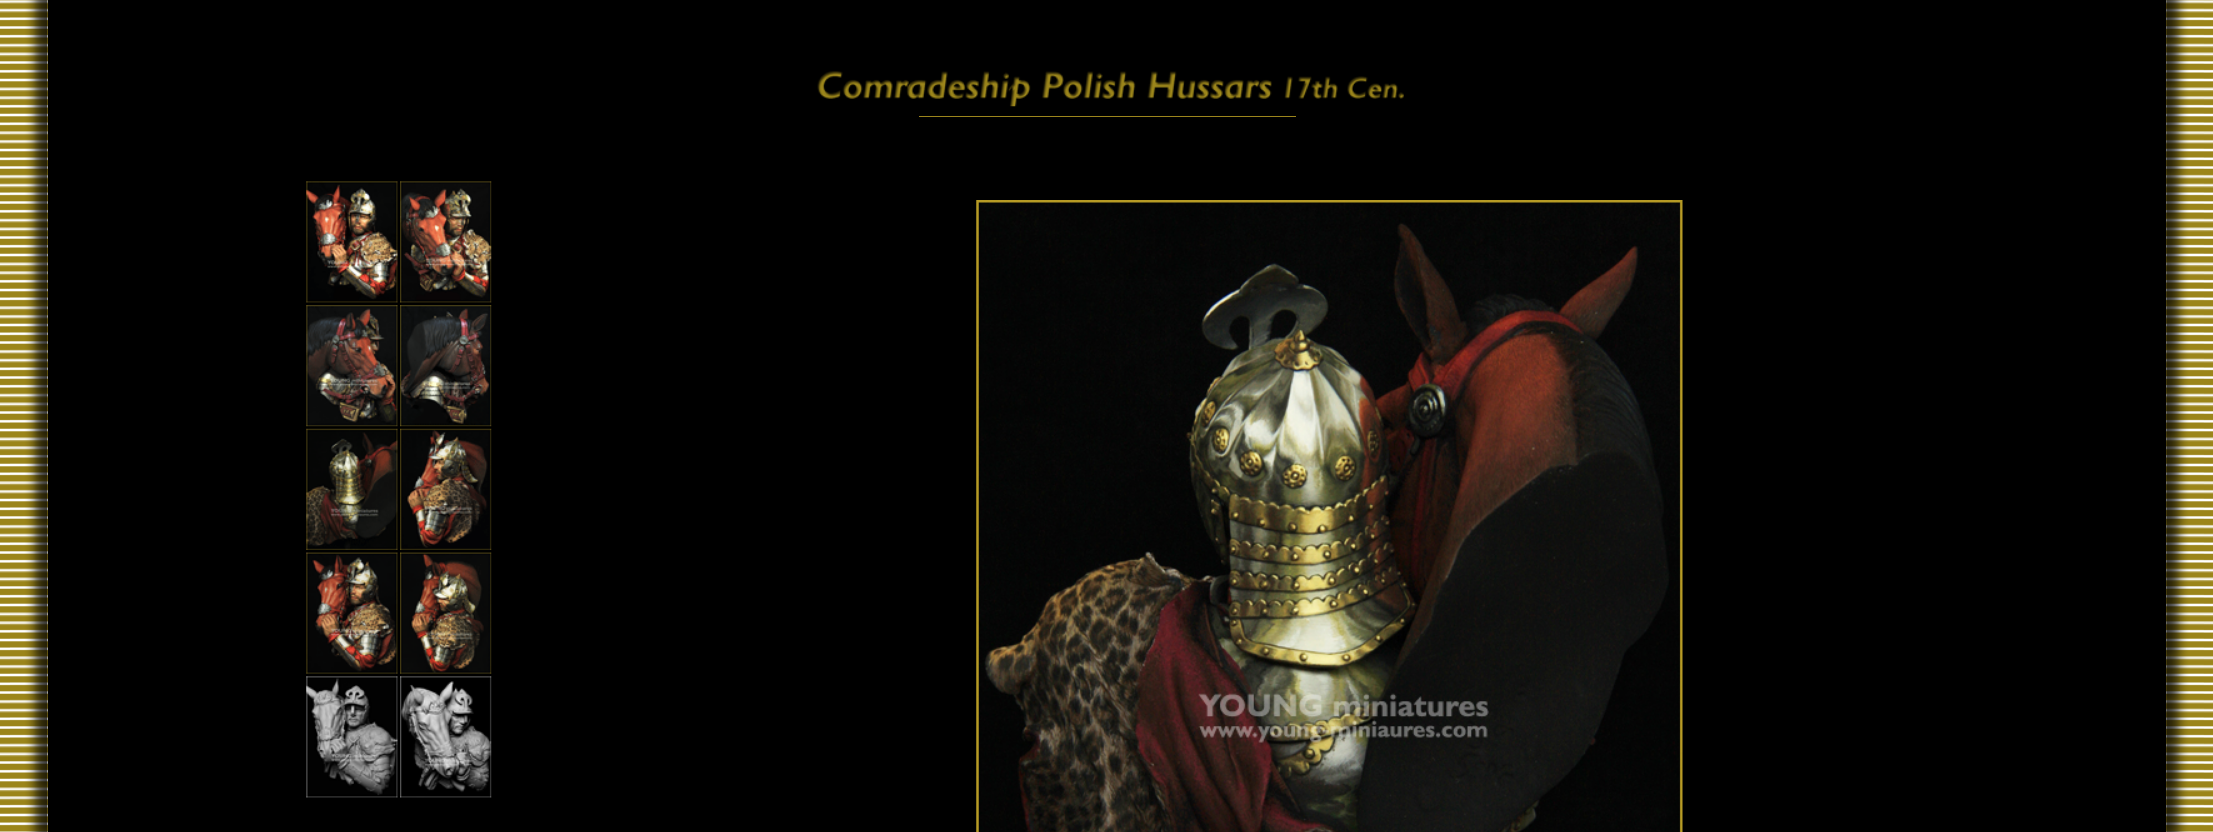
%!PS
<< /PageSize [2213 832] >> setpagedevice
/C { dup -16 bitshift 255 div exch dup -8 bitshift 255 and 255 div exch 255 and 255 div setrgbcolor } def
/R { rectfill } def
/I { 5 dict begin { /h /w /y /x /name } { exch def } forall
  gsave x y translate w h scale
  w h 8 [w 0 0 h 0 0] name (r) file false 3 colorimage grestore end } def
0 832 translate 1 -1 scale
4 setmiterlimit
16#FFFFFF C
0 0 2213 832 R
(1.rgb) 0 0 2213 832 I
(2.rgb) 10 0 38 832 I
16#000000 C
48 0 2118 180 R
(3.rgb) 817 71 587 36 I
16#9B851C C
919 116 377 1 R
(4.rgb) 2166 0 38 832 I
16#000000 C
48 180 2118 652 R
(5.rgb) 306 181 92 122 I
(6.rgb) 400 181 92 122 I
(7.rgb) 306 305 92 122 I
(8.rgb) 400 305 92 122 I
(9.rgb) 306 428 92 122 I
(10.rgb) 400 428 92 122 I
(11.rgb) 306 552 92 122 I
(12.rgb) 400 552 92 122 I
(13.rgb) 306 676 92 122 I
(14.rgb) 400 676 92 122 I
(15.rgb) 976 200 707 632 I
showpage
